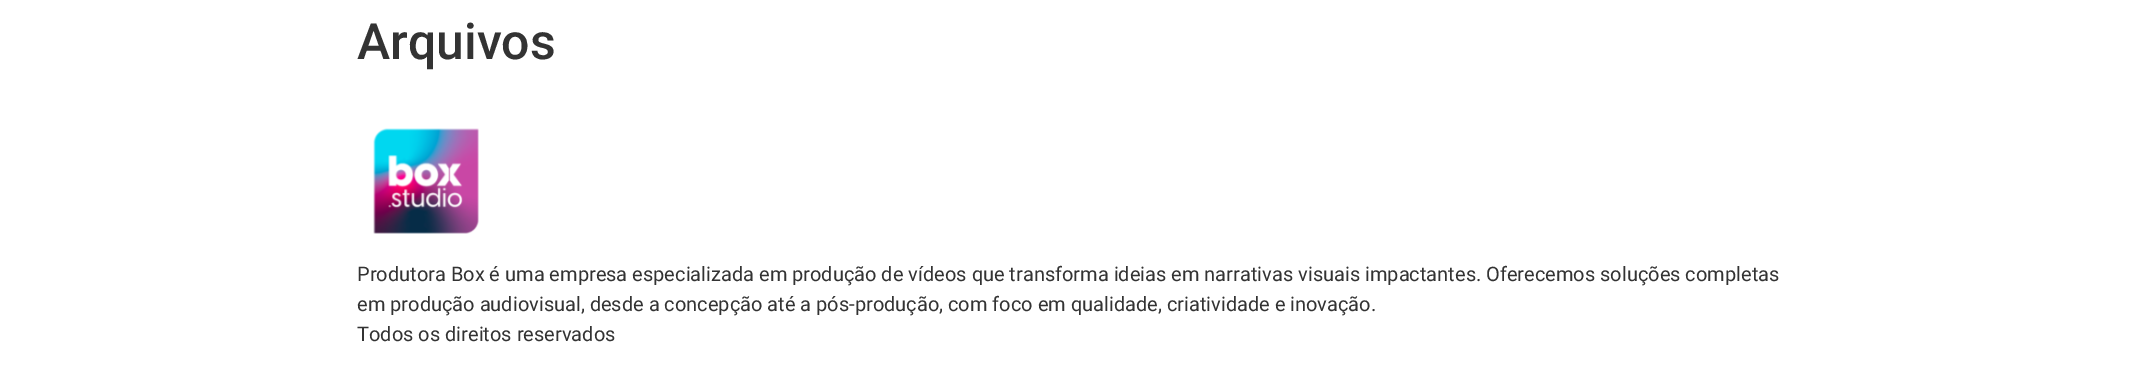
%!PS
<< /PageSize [2138 369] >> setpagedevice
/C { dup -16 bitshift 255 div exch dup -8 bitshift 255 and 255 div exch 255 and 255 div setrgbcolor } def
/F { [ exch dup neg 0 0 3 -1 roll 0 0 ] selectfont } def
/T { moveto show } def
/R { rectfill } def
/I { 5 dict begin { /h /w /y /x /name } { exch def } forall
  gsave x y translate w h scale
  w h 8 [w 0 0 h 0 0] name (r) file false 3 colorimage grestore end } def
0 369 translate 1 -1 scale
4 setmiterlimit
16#FFFFFF C
0 0 2138 369 R
/Roboto-Medium 50 F
16#333333 C
(Arquivos) 357 59 T
(1.rgb) 373 128 106 106 I
/Roboto-Regular 20 F
(Produtora Box é uma empresa especializada em produção de vídeos que transforma ideias em narrativas visuais impactantes. Oferecemos soluções completas) 357 281 T
(em produção audiovisual, desde a concepção até a pós-produção, com foco em qualidade, criatividade e inovação.) 357 311 T
(Todos os direitos reservados) 357 341 T
showpage
